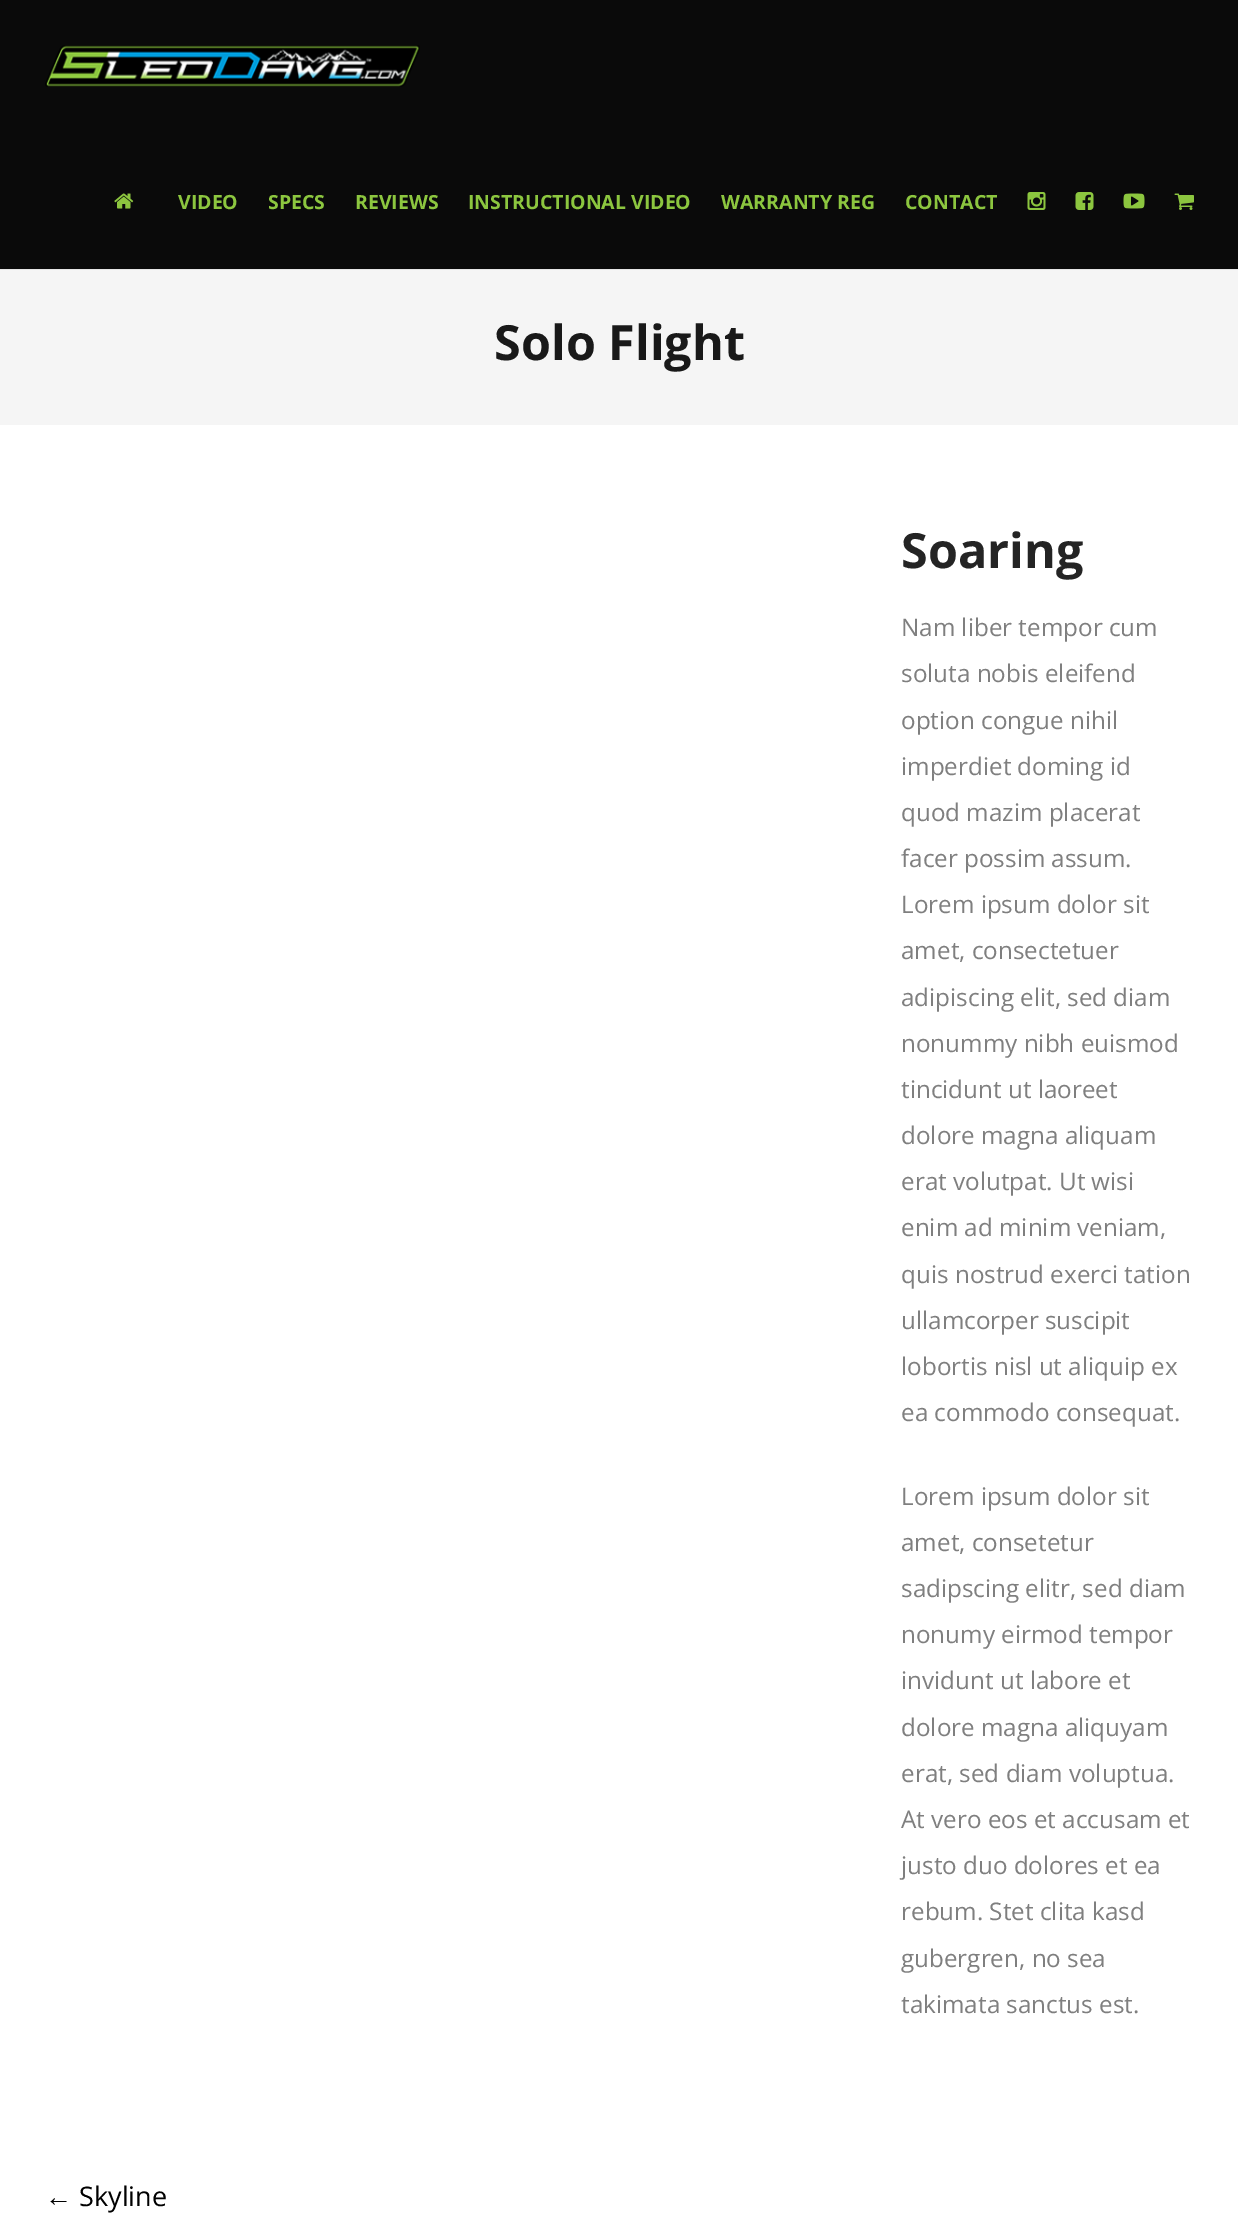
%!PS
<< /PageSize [1238 2228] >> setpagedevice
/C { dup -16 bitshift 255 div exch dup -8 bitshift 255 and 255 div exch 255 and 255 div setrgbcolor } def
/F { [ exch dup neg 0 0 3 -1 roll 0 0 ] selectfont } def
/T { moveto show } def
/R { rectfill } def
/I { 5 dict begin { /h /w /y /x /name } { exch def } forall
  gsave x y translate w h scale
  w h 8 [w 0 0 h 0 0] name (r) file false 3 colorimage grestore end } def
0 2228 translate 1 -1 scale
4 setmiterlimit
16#FFFFFF C
0 0 1238 2228 R
16#E6E6E6 C
0 269 1238 1 R
16#0A0A0A C
0 0 1238 269 R
(1.rgb) 45 45 375 42 I
(2.rgb) 114 193 20 16 I
/OpenSans-Bold 19.5 F
16#8CC63F C
(VIDEO) 178 209 T
(SPECS) 268 209 T
(REVIEWS) 355 209 T
(INSTRUCTIONAL VIDEO) 468 209 T
(WARRANTY REG) 721 209 T
(CONTACT) 905 209 T
(3.rgb) 1027 192 19 18 I
(4.rgb) 1075 192 19 18 I
(5.rgb) 1123 193 22 16 I
(6.rgb) 1174 193 20 17 I
16#F5F5F5 C
0 270 1238 155 R
/OpenSans-Bold 48.5 F
16#191919 C
(Solo Flight) 494 360 T
16#242424 C
(Soaring) 901 568 T
/OpenSans-Regular 24.25 F
16#7F7F7F C
(Nam liber tempor cum) 901 636 T
(soluta nobis eleifend) 901 682 T
(option congue nihil) 901 729 T
(imperdiet doming id) 901 775 T
(quod mazim placerat) 901 821 T
(facer possim assum.) 901 867 T
(Lorem ipsum dolor sit) 901 913 T
(amet, consectetuer) 901 959 T
(adipiscing elit, sed diam) 901 1006 T
(nonummy nibh euismod) 901 1052 T
(tincidunt ut laoreet) 901 1098 T
(dolore magna aliquam) 901 1144 T
(erat volutpat. Ut wisi) 901 1190 T
(enim ad minim veniam,) 901 1236 T
(quis nostrud exerci tation) 901 1283 T
(ullamcorper suscipit) 901 1329 T
(lobortis nisl ut aliquip ex) 901 1375 T
(ea commodo consequat.) 901 1421 T
(Lorem ipsum dolor sit) 901 1505 T
(amet, consetetur) 901 1551 T
(sadipscing elitr, sed diam) 901 1597 T
(nonumy eirmod tempor) 901 1643 T
(invidunt ut labore et) 901 1689 T
(dolore magna aliquyam) 901 1736 T
(erat, sed diam voluptua.) 901 1782 T
(At vero eos et accusam et) 901 1828 T
(justo duo dolores et ea) 901 1874 T
(rebum. Stet clita kasd) 901 1920 T
(gubergren, no sea) 901 1967 T
(takimata sanctus est.) 901 2013 T
/LiberationSans-Regular 27 F
16#000000 C
(←) 45 2206 T
/OpenSans-Regular 27 F
(Skyline) 79 2206 T
showpage
